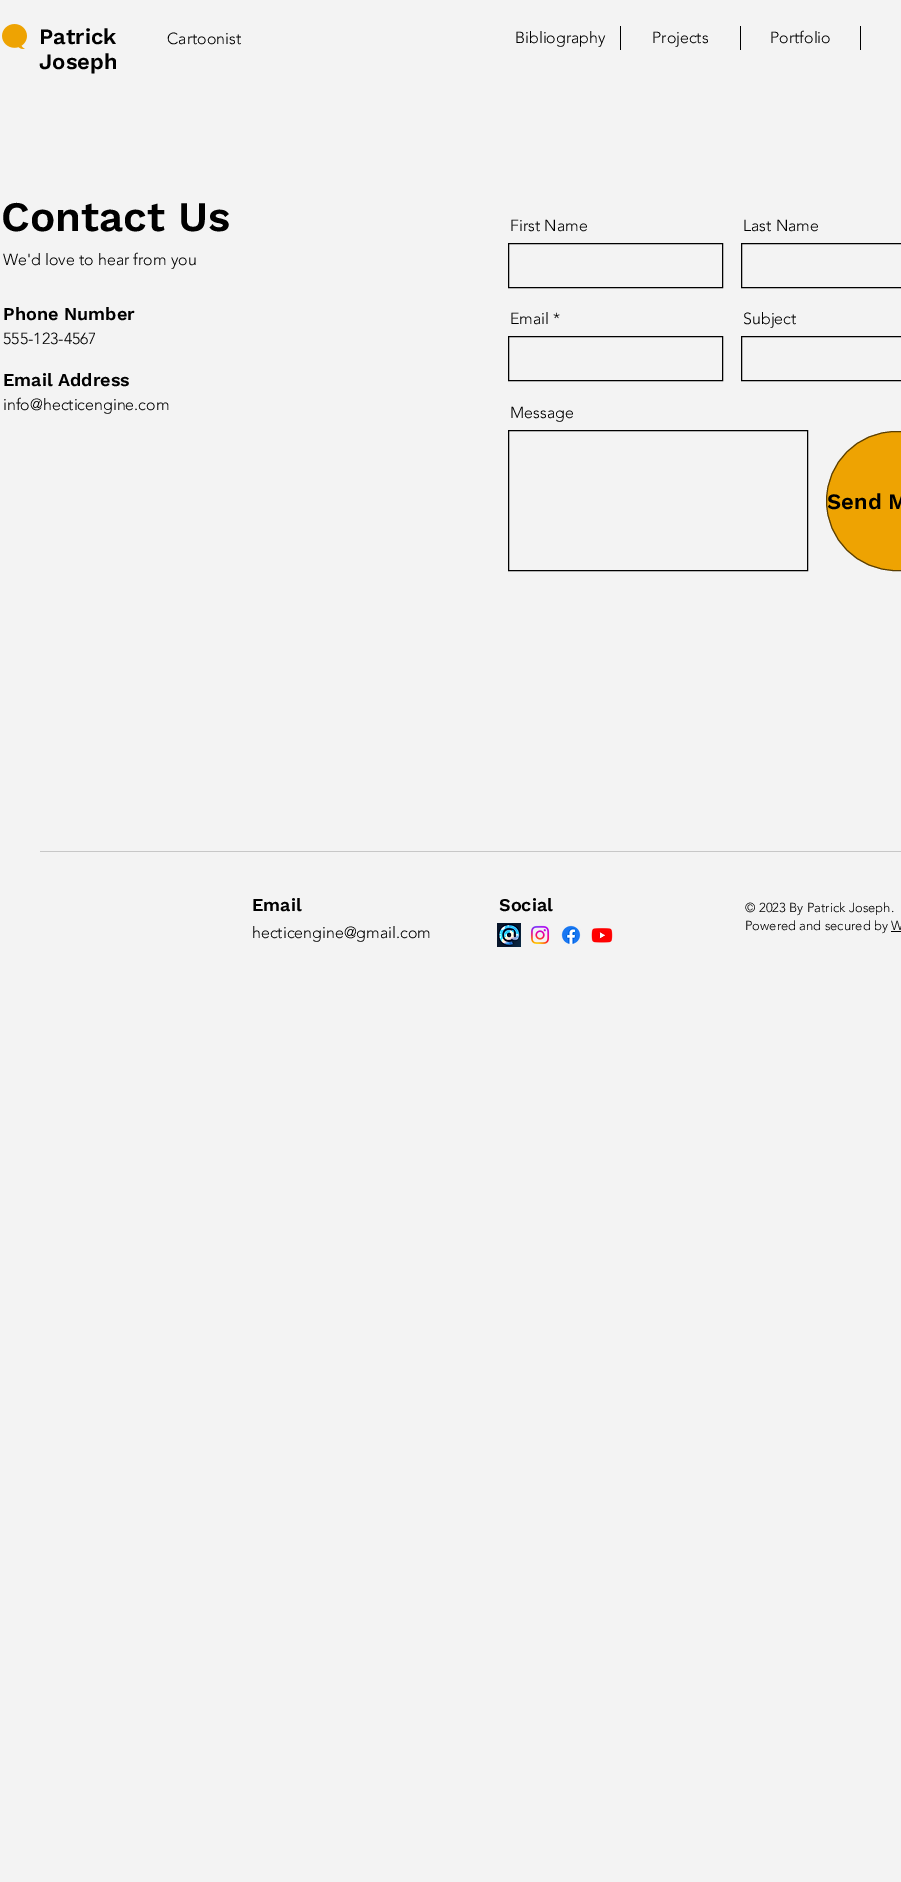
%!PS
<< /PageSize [901 1882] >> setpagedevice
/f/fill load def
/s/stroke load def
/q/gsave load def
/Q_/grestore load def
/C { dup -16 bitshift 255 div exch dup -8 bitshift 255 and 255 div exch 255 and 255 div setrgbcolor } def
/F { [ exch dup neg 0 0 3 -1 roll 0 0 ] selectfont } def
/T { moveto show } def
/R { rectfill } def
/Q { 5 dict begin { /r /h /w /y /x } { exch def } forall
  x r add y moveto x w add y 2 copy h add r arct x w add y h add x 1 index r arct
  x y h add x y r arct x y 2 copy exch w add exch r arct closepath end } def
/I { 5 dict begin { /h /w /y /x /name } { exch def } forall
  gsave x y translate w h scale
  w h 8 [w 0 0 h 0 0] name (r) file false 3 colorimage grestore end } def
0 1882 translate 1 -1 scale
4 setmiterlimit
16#F3F3F3 C
0 0 901 1882 R
(1.rgb) 2 24 25 25 I
/WorkSans-SemiBold 22 F
16#000000 C
(Patrick) 39 44 T
(Joseph) 39 69 T
/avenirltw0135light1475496-Light 16 F
(Cartoonist) 167 44 T
(Bibliography) 515 43 T
620 26 1 24 R
(Projects) 652 43 T
740 26 1 24 R
(Portfolio) 770 43 T
860 26 1 24 R
/WorkSans-SemiBold 42 F
(Contact Us) 1 231 T
/avenirltw0135light1475496-Light 16 F
(We'd love to hear from you) 3 265 T
/WorkSans-SemiBold 18 F
(Phone Number) 3 320 T
/avenirltw0135light1475496-Light 16 F
(555-123-4567) 3 344 T
/WorkSans-SemiBold 18 F
(Email Address) 3 386 T
/avenirltw0135light1475496-Light 16 F
(info@hecticengine.com) 3 410 T
(First Name) 510 231 T
508.5 243.5 214 44 rectstroke
(Last Name) 743 231 T
741.5 243.5 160 44 rectstroke
(Email *) 510 324 T
508.5 336.5 214 44 rectstroke
(Subject) 743 324 T
741.5 336.5 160 44 rectstroke
(Message) 510 418 T
508.5 430.5 299 140 rectstroke
16#EEA302 C
826.5 431.5 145 139 69.5 Q q f Q_
16#593E03 C
s
/WorkSans-SemiBold 22 F
16#000000 C
(Send M) 827 509 T
16#C7C7C7 C
40 851 861 1 R
/WorkSans-SemiBold 18 F
16#000000 C
(Email) 252 911 T
/avenirltw0135light1475496-Light 16 F
(hecticengine@gmail.com) 252 938 T
/WorkSans-SemiBold 18 F
(Social) 499 911 T
(2.rgb) 497 923 24 24 I
(3.rgb) 530 925 20 20 I
(4.rgb) 561 925 20 19 I
(5.rgb) 591 928 22 15 I
/avenirltw0135light1475496-Light 13 F
(© 2023 By Patrick Joseph.) 745 912 T
(Powered and secured by W) 745 930 T
891 931 10 1 R
showpage
